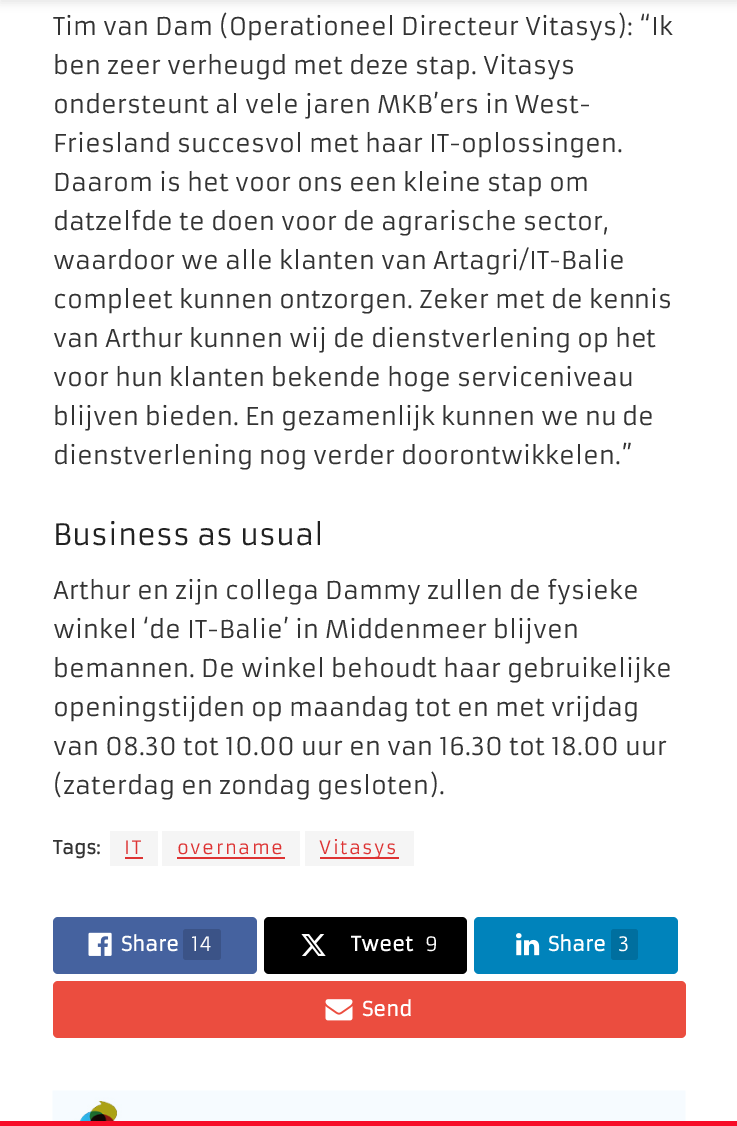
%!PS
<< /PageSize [737 1126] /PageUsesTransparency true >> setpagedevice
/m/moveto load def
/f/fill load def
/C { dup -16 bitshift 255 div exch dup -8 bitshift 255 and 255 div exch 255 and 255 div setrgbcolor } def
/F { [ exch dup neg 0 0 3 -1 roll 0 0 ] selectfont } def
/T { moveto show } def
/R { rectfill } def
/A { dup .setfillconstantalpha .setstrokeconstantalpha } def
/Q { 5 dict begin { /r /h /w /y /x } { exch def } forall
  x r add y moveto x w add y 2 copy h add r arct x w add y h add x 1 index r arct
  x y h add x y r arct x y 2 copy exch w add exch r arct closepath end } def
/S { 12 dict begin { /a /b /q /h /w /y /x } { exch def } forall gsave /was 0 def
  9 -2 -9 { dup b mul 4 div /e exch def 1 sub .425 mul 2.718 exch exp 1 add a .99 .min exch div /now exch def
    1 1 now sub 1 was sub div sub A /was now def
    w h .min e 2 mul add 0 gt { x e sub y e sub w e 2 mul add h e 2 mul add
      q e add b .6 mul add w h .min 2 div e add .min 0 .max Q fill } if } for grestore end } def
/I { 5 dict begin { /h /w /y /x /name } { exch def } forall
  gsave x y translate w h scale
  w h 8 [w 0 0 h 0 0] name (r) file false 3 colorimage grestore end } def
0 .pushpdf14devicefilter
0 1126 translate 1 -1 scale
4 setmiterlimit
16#FFFFFF C
0 0 737 1126 R
16#000000 C
0 -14 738 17 0 4.5 .1 S
/Armata-Regular 24 F
16#333333 C
(Tim van Dam \(Operationeel Directeur Vitasys\): “Ik) 53 35 T
(ben zeer verheugd met deze stap. Vitasys) 53 74 T
(ondersteunt al vele jaren MKB’ers in West-) 53 113 T
(Friesland succesvol met haar IT-oplossingen.) 53 152 T
(Daarom is het voor ons een kleine stap om) 53 191 T
(datzelfde te doen voor de agrarische sector,) 53 230 T
(waardoor we alle klanten van Artagri/IT-Balie) 53 269 T
(compleet kunnen ontzorgen. Zeker met de kennis) 53 308 T
(van Arthur kunnen wij de dienstverlening op het) 53 347 T
(voor hun klanten bekende hoge serviceniveau) 53 386 T
(blijven bieden. En gezamenlijk kunnen we nu de) 53 425 T
(dienstverlening nog verder doorontwikkelen.”) 53 464 T
/Armata-Regular 28.75 F
16#212121 C
(Business as usual) 53 545 T
/Armata-Regular 24 F
16#333333 C
(Arthur en zijn collega Dammy zullen de fysieke) 53 599 T
(winkel ‘de IT-Balie’ in Middenmeer blijven) 53 638 T
(bemannen. De winkel behoudt haar gebruikelijke) 53 677 T
(openingstijden op maandag tot en met vrijdag) 53 716 T
(van 08.30 tot 10.00 uur en van 16.30 tot 18.00 uur) 53 755 T
(\(zaterdag en zondag gesloten\).) 53 794 T
/Armata-Bold 18 F
(Tags:) 53 854 T
16#F5F5F5 C
110 831 48 35 R
/Armata-Regular 18 F
16#DD3333 C
124 854 m 1.5 0 (IT) ashow
125 857 18 2 R
16#F5F5F5 C
162 831 138 35 R
16#DD3333 C
177 854 m 1.5 0 (overname) ashow
177 857 108 2 R
16#F5F5F5 C
305 831 109 35 R
16#DD3333 C
320 857 79 2 R
319 854 m 1.5 0 (Vitasys) ashow
16#45629F C
53 917 204 57 5 Q f
(1.rgb) 88 932 24 24 I
/Armata-Bold 19.5 F
16#FFFFFF C
(Share) 121 951 T
16#3B5387 C
183 929 38 31 3 Q f
/Armata-Regular 19.5 F
16#FFFFFF C
(14) 191 951 T
16#000000 C
264 917 203 57 5 Q f
(2.rgb) 301 934 25 22 I
/Armata-Bold 19.5 F
16#FFFFFF C
(Tweet) 351 951 T
/Armata-Regular 19.5 F
(9) 425 951 T
16#0083BB C
474 917 204 57 5 Q f
(3.rgb) 516 933 24 23 I
/Armata-Bold 19.5 F
16#FFFFFF C
(Share) 548 951 T
16#006F9F C
611 929 27 31 3 Q f
/Armata-Regular 19.5 F
16#FFFFFF C
(3) 618 951 T
16#EB4D3F C
53 981 633 57 5 Q f
(4.rgb) 325 999 28 22 I
/Armata-Bold 19.5 F
16#FFFFFF C
(Send) 362 1016 T
(5.rgb) 52 1090 634 31 I
16#F70D28 C
0 1121 737 5 R
.poppdf14devicefilter showpage
